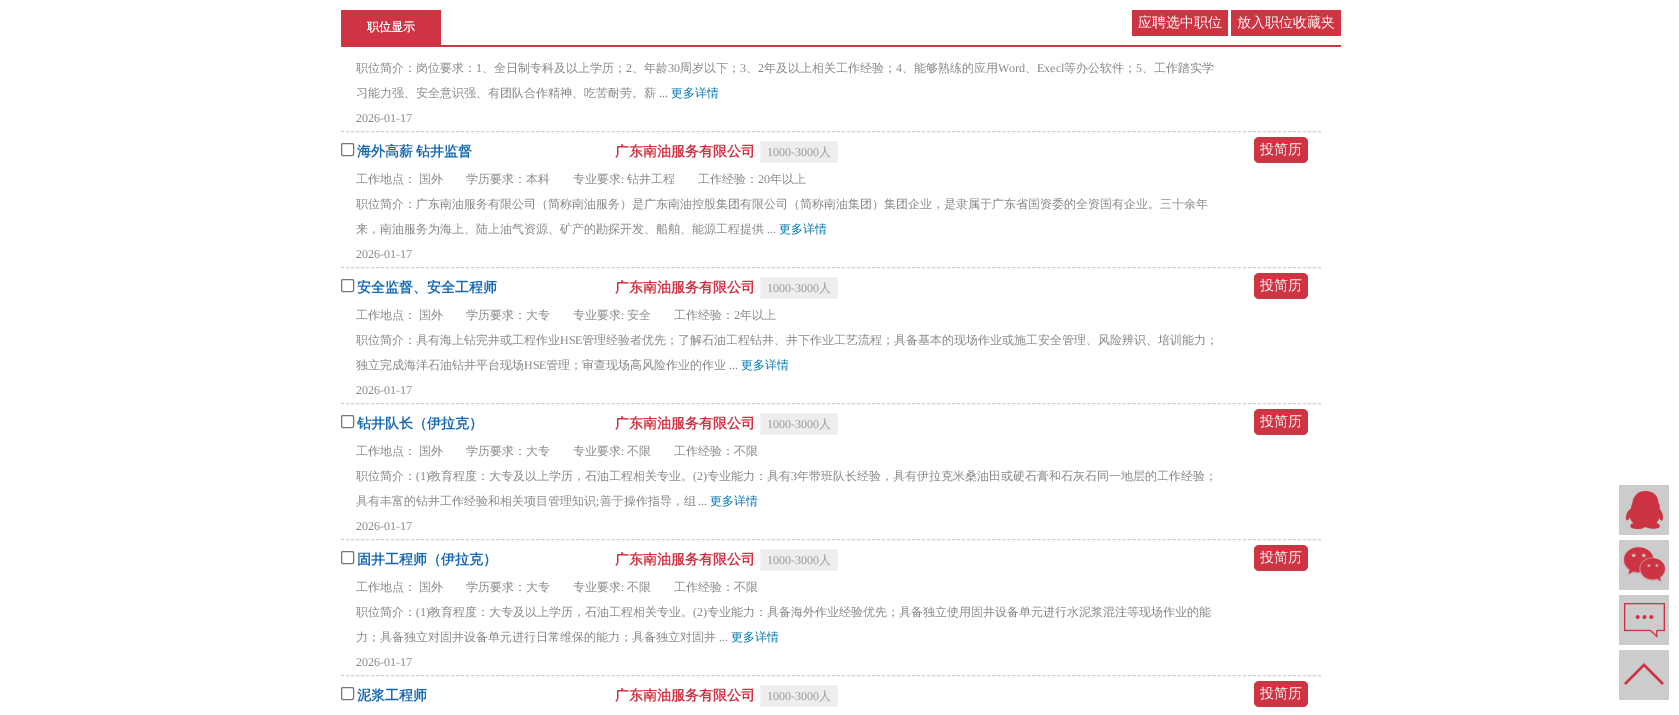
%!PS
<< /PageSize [1679 715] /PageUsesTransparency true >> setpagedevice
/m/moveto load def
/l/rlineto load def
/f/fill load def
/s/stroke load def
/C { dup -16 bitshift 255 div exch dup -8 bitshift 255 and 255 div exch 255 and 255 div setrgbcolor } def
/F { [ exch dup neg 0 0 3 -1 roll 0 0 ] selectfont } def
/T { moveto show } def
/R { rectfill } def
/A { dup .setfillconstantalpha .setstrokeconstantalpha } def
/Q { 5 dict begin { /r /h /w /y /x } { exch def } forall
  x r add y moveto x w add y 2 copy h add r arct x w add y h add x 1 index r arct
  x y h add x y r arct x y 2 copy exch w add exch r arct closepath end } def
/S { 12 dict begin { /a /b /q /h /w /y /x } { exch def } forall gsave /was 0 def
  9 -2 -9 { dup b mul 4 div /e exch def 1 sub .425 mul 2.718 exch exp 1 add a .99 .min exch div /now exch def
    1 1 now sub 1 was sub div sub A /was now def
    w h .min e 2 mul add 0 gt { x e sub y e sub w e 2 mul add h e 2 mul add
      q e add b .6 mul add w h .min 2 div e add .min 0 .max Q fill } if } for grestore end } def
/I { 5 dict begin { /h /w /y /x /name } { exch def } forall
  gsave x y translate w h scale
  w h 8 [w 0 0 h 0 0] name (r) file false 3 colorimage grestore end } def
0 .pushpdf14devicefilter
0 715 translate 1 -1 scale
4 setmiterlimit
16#FFFFFF C
0 0 1679 715 R
16#CF3442 C
341 45 1000 2 R
341 10 100 35 R
/WenQuanYiZenHei-Bold 12 F
16#FFFFFF C
(职位显示) 367 31 T
16#CF3442 C
1132 10 96 26 R
/WenQuanYiZenHei-Medium 14 F
16#FFFFFF C
(应聘选中职位) 1138 27 T
16#CF3442 C
1231 10 110 26 R
16#FFFFFF C
(放入职位收藏夹) 1237 27 T
16#CDCDCD C
[3 2.01] 0 setdash
341 131.5 m 980 0 l s
/WenQuanYiZenHei-Medium 12 F
16#878787 C
(职位简介：岗位要求：) 356 72 T
/LiberationSerif-Regular 12 F
(1) 476 72 T
/WenQuanYiZenHei-Medium 12 F
(、全日制专科及以上学历；) 482 72 T
/LiberationSerif-Regular 12 F
(2) 626 72 T
/WenQuanYiZenHei-Medium 12 F
(、年龄) 632 72 T
/LiberationSerif-Regular 12 F
(30) 668 72 T
/WenQuanYiZenHei-Medium 12 F
(周岁以下；) 680 72 T
/LiberationSerif-Regular 12 F
(3) 740 72 T
/WenQuanYiZenHei-Medium 12 F
(、) 746 72 T
/LiberationSerif-Regular 12 F
(2) 758 72 T
/WenQuanYiZenHei-Medium 12 F
(年及以上相关工作经验；) 764 72 T
/LiberationSerif-Regular 12 F
(4) 896 72 T
/WenQuanYiZenHei-Medium 12 F
(、能够熟练的应用) 902 72 T
/LiberationSerif-Regular 12 F
(Word) 998 72 T
/WenQuanYiZenHei-Medium 12 F
(、) 1025 72 T
/LiberationSerif-Regular 12 F
(Execl) 1037 72 T
/WenQuanYiZenHei-Medium 12 F
(等办公软件；) 1064 72 T
/LiberationSerif-Regular 12 F
(5) 1136 72 T
/WenQuanYiZenHei-Medium 12 F
(、工作踏实学) 1142 72 T
(习能力强、安全意识强、有团队合作精神、吃苦耐劳。薪) 356 97 T
/LiberationSerif-Regular 12 F
(...) 659 97 T
/WenQuanYiZenHei-Medium 12 F
16#0078AF C
(更多详情) 671 97 T
/LiberationSerif-Regular 12 F
16#878787 C
(2026-01-17) 356 122 T
16#CDCDCD C
341 267.5 m 980 0 l s
16#767676 C
[] 0 setdash
341.5 143.5 12 12 1.5 Q s
/WenQuanYiZenHei-Bold 14 F
16#1769B1 C
357 156 m -1 0 32 (海外高薪 钻井监督) widthshow
16#CF3443 C
(广东南油服务有限公司) 615 156 T
16#CCCCCC C
761 142 76 20 0 .5 1 S
16#EDEDED C
761 142 76 20 R
/LiberationSerif-Regular 12 F
16#999999 C
(1000-3000) 767 156 T
/WenQuanYiZenHei-Medium 12 F
(人) 819 156 T
16#878787 C
356 183 m -1 0 32 (工作地点： 国外) widthshow
(学历要求：本科) 466 183 T
(专业要求) 573 183 T
/LiberationSerif-Regular 12 F
(:) 621 183 T
/WenQuanYiZenHei-Medium 12 F
(钻井工程) 627 183 T
(工作经验：) 698 183 T
/LiberationSerif-Regular 12 F
(20) 758 183 T
/WenQuanYiZenHei-Medium 12 F
(年以上) 770 183 T
(职位简介：广东南油服务有限公司（简称南油服务）是广东南油控股集团有限公司（简称南油集团）集团企业，是隶属于广东省国资委的全资国有企业。三十余年) 356 208 T
(来，南油服务为海上、陆上油气资源、矿产的勘探开发、船舶、能源工程提供) 356 233 T
/LiberationSerif-Regular 12 F
(...) 767 233 T
/WenQuanYiZenHei-Medium 12 F
16#0078AF C
(更多详情) 779 233 T
/LiberationSerif-Regular 12 F
16#878787 C
(2026-01-17) 356 258 T
16#CF3442 C
1254 137 54 26 5 Q f
/WenQuanYiZenHei-Medium 14 F
16#FFFFFF C
(投简历) 1260 154 T
16#CDCDCD C
[3 2.01] 0 setdash
341 403.5 m 980 0 l s
16#767676 C
[] 0 setdash
341.5 279.5 12 12 1.5 Q s
/WenQuanYiZenHei-Bold 14 F
16#1769B1 C
(安全监督、安全工程师) 357 292 T
16#CF3443 C
(广东南油服务有限公司) 615 292 T
16#CCCCCC C
761 278 76 20 0 .5 1 S
16#EDEDED C
761 278 76 20 R
/LiberationSerif-Regular 12 F
16#999999 C
(1000-3000) 767 292 T
/WenQuanYiZenHei-Medium 12 F
(人) 819 292 T
16#878787 C
356 319 m -1 0 32 (工作地点： 国外) widthshow
(学历要求：大专) 466 319 T
(专业要求) 573 319 T
/LiberationSerif-Regular 12 F
(:) 621 319 T
/WenQuanYiZenHei-Medium 12 F
(安全) 627 319 T
(工作经验：) 674 319 T
/LiberationSerif-Regular 12 F
(2) 734 319 T
/WenQuanYiZenHei-Medium 12 F
(年以上) 740 319 T
(职位简介：具有海上钻完井或工程作业) 356 344 T
/LiberationSerif-Regular 12 F
(HSE) 560 344 T
/WenQuanYiZenHei-Medium 12 F
(管理经验者优先；了解石油工程钻井、井下作业工艺流程；具备基本的现场作业或施工安全管理、风险辨识、培训能力；) 582 344 T
(独立完成海洋石油钻井平台现场) 356 369 T
/LiberationSerif-Regular 12 F
(HSE) 524 369 T
/WenQuanYiZenHei-Medium 12 F
(管理；审查现场高风险作业的作业) 546 369 T
/LiberationSerif-Regular 12 F
(...) 729 369 T
/WenQuanYiZenHei-Medium 12 F
16#0078AF C
(更多详情) 741 369 T
/LiberationSerif-Regular 12 F
16#878787 C
(2026-01-17) 356 394 T
16#CF3442 C
1254 273 54 26 5 Q f
/WenQuanYiZenHei-Medium 14 F
16#FFFFFF C
(投简历) 1260 290 T
16#CDCDCD C
[3 2.01] 0 setdash
341 539.5 m 980 0 l s
16#767676 C
[] 0 setdash
341.5 415.5 12 12 1.5 Q s
/WenQuanYiZenHei-Bold 14 F
16#1769B1 C
(钻井队长（伊拉克）) 357 428 T
16#CF3443 C
(广东南油服务有限公司) 615 428 T
16#CCCCCC C
761 414 76 20 0 .5 1 S
16#EDEDED C
761 414 76 20 R
/LiberationSerif-Regular 12 F
16#999999 C
(1000-3000) 767 428 T
/WenQuanYiZenHei-Medium 12 F
(人) 819 428 T
16#878787 C
356 455 m -1 0 32 (工作地点： 国外) widthshow
(学历要求：大专) 466 455 T
(专业要求) 573 455 T
/LiberationSerif-Regular 12 F
(:) 621 455 T
/WenQuanYiZenHei-Medium 12 F
(不限) 627 455 T
(工作经验：不限) 674 455 T
(职位简介：) 356 480 T
/LiberationSerif-Regular 12 F
(\(1\)) 416 480 T
/WenQuanYiZenHei-Medium 12 F
(教育程度：大专及以上学历，石油工程相关专业。) 429 480 T
/LiberationSerif-Regular 12 F
(\(2\)) 693 480 T
/WenQuanYiZenHei-Medium 12 F
(专业能力：具有) 707 480 T
/LiberationSerif-Regular 12 F
(3) 791 480 T
/WenQuanYiZenHei-Medium 12 F
(年带班队长经验，具有伊拉克米桑油田或硬石膏和石灰石同一地层的工作经验；) 797 480 T
(具有丰富的钻井工作经验和相关项目管理知识 善于操作指导，组) 356 505 T
16#0078AF C
(更多详情) 710 505 T
/LiberationSerif-Regular 12 F
16#878787 C
(;) 596 505 T
(...) 698 505 T
(2026-01-17) 356 530 T
16#CF3442 C
1254 409 54 26 5 Q f
/WenQuanYiZenHei-Medium 14 F
16#FFFFFF C
(投简历) 1260 426 T
16#CDCDCD C
[3 2.01] 0 setdash
341 675.5 m 980 0 l s
16#767676 C
[] 0 setdash
341.5 551.5 12 12 1.5 Q s
/WenQuanYiZenHei-Bold 14 F
16#1769B1 C
(固井工程师（伊拉克）) 357 564 T
16#CF3443 C
(广东南油服务有限公司) 615 564 T
16#CCCCCC C
761 550 76 20 0 .5 1 S
16#EDEDED C
761 550 76 20 R
/LiberationSerif-Regular 12 F
16#999999 C
(1000-3000) 767 564 T
/WenQuanYiZenHei-Medium 12 F
(人) 819 564 T
16#878787 C
356 591 m -1 0 32 (工作地点： 国外) widthshow
(学历要求：大专) 466 591 T
(专业要求) 573 591 T
/LiberationSerif-Regular 12 F
(:) 621 591 T
/WenQuanYiZenHei-Medium 12 F
(不限) 627 591 T
(工作经验：不限) 674 591 T
(职位简介：) 356 616 T
/LiberationSerif-Regular 12 F
(\(1\)) 416 616 T
/WenQuanYiZenHei-Medium 12 F
(教育程度：大专及以上学历，石油工程相关专业。) 429 616 T
/LiberationSerif-Regular 12 F
(\(2\)) 693 616 T
/WenQuanYiZenHei-Medium 12 F
(专业能力：具备海外作业经验优先；具备独立使用固井设备单元进行水泥浆混注等现场作业的能) 707 616 T
(力；具备独立对固井设备单元进行日常维保的能力；具备独立对固井) 356 641 T
/LiberationSerif-Regular 12 F
(...) 719 641 T
/WenQuanYiZenHei-Medium 12 F
16#0078AF C
(更多详情) 731 641 T
/LiberationSerif-Regular 12 F
16#878787 C
(2026-01-17) 356 666 T
16#CF3442 C
1254 545 54 26 5 Q f
/WenQuanYiZenHei-Medium 14 F
16#FFFFFF C
(投简历) 1260 562 T
16#767676 C
341.5 687.5 12 12 1.5 Q s
/WenQuanYiZenHei-Bold 14 F
16#1769B1 C
(泥浆工程师) 357 700 T
16#CF3443 C
(广东南油服务有限公司) 615 700 T
16#CCCCCC C
761 686 76 20 0 .5 1 S
16#EDEDED C
761 686 76 20 R
/LiberationSerif-Regular 12 F
16#999999 C
(1000-3000) 767 700 T
/WenQuanYiZenHei-Medium 12 F
(人) 819 700 T
16#CF3442 C
1254 681 54 26 5 Q f
/WenQuanYiZenHei-Medium 14 F
16#FFFFFF C
(投简历) 1260 698 T
(1.rgb) 1619 485 50 50 I
(2.rgb) 1619 540 50 50 I
(3.rgb) 1619 595 50 50 I
(4.rgb) 1619 650 50 50 I
.poppdf14devicefilter showpage
